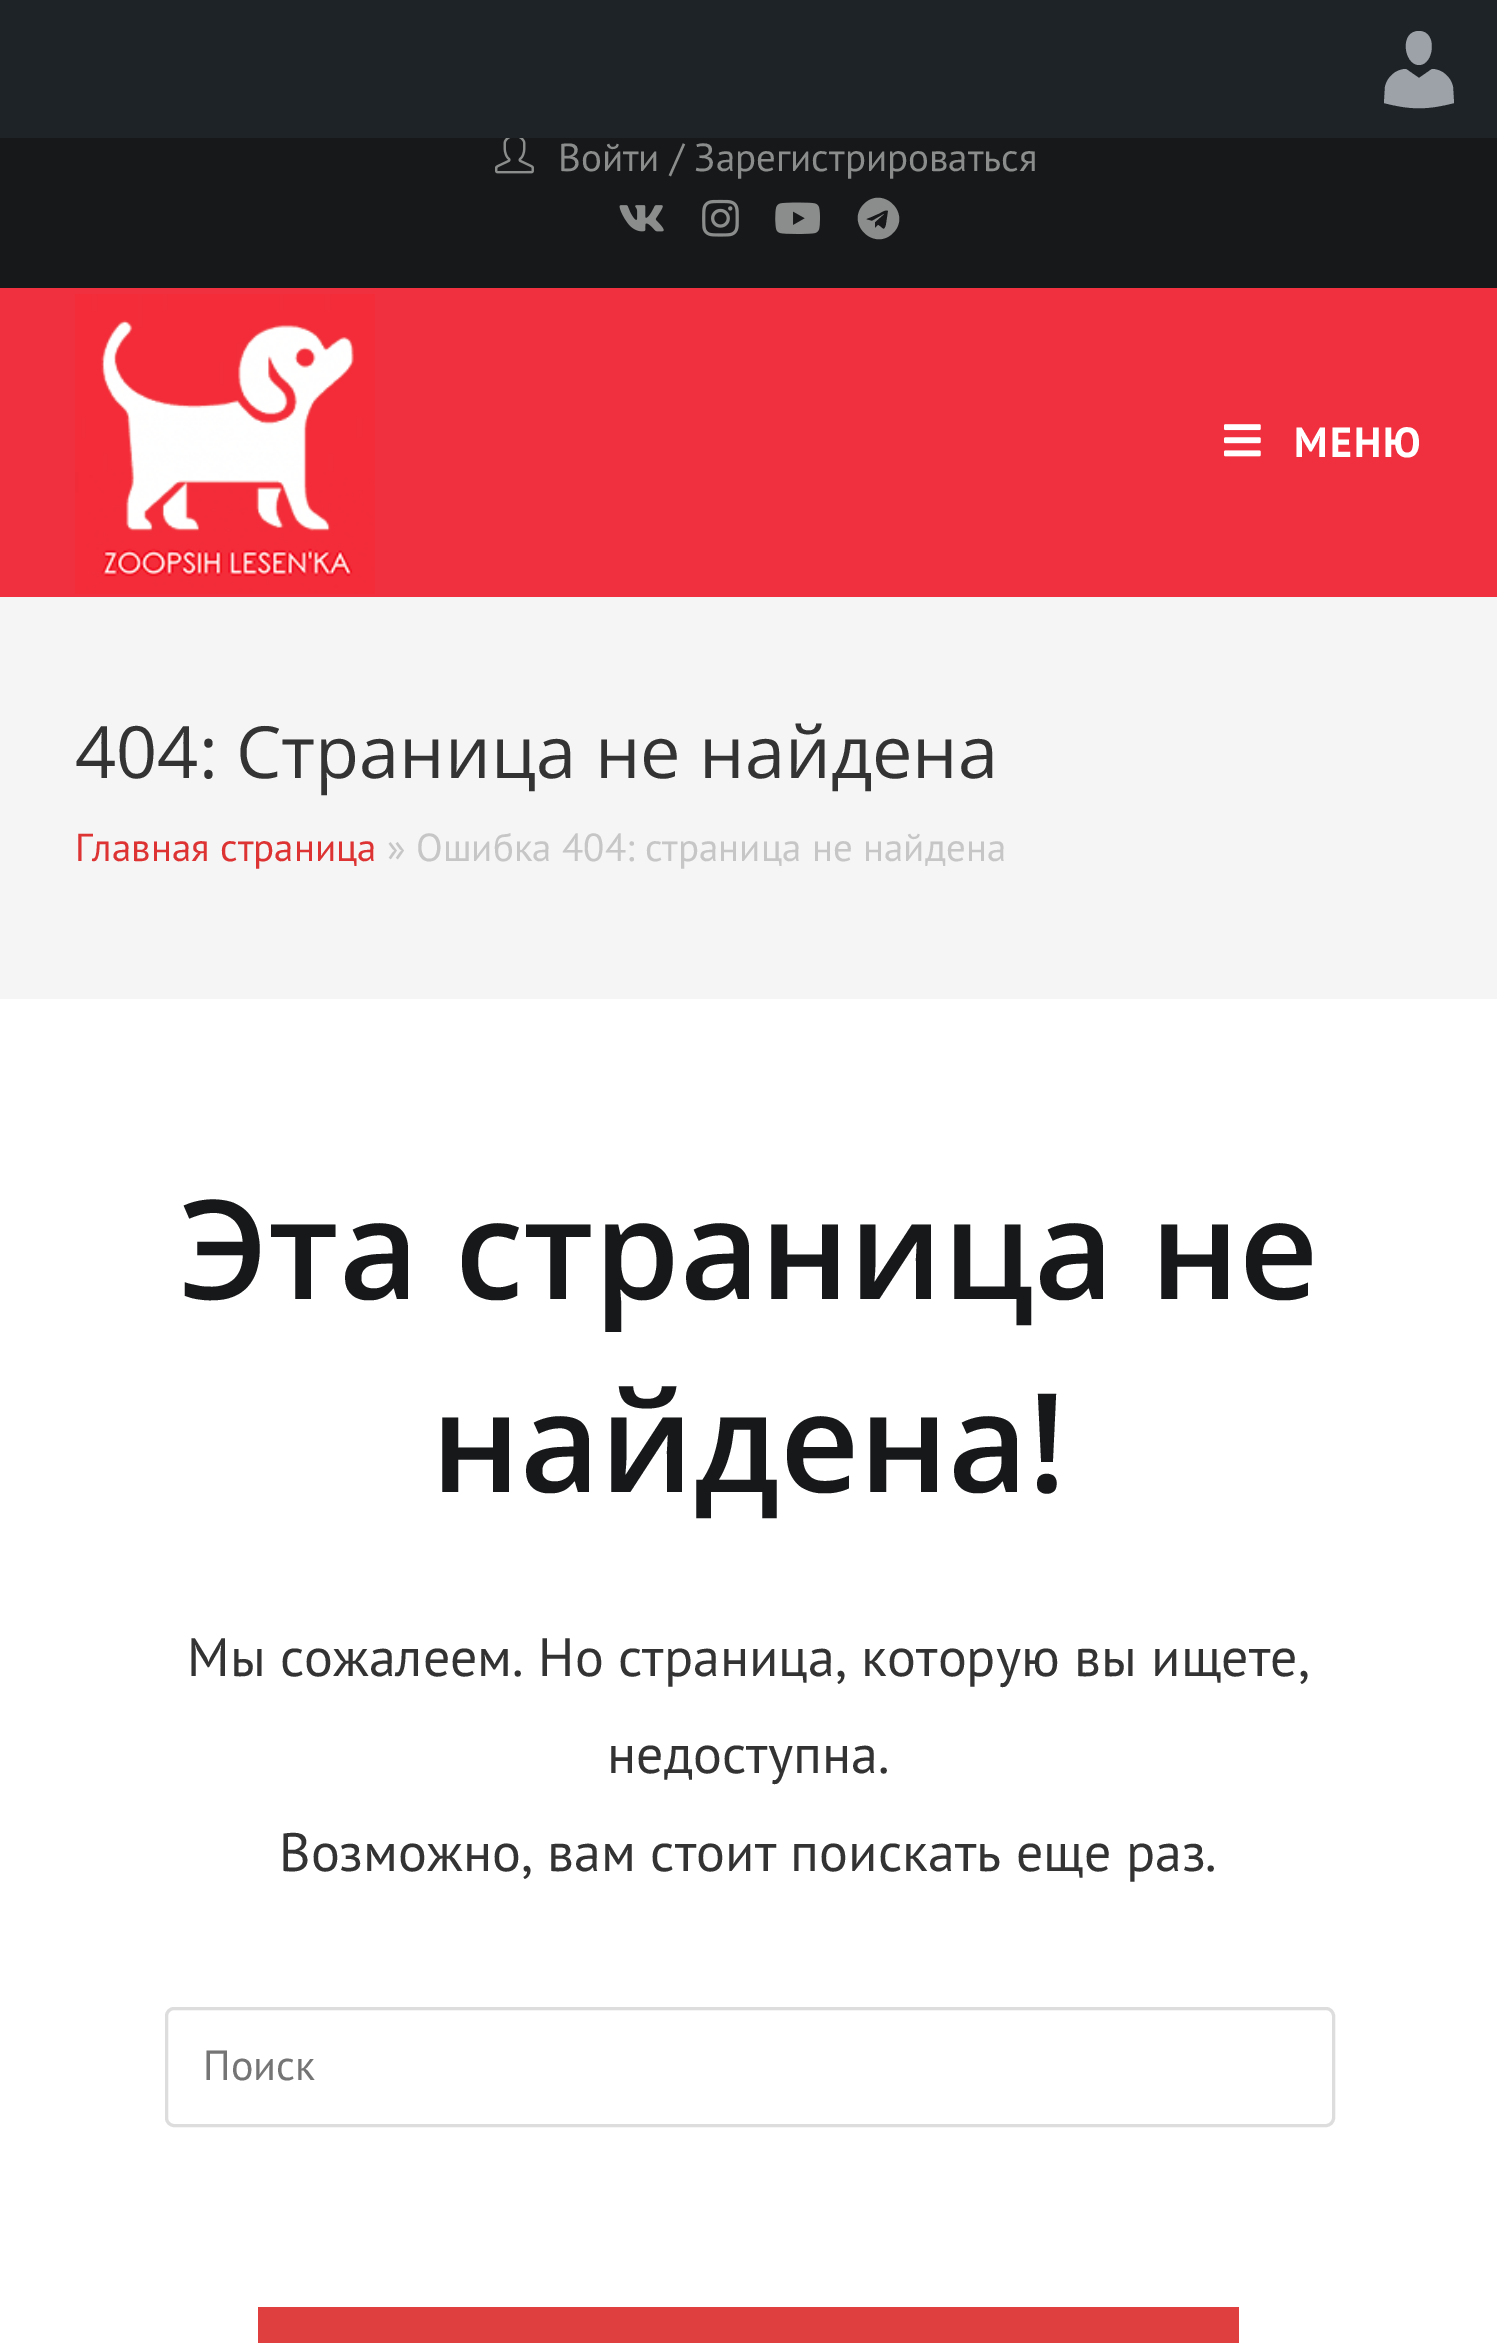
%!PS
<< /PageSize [1497 2343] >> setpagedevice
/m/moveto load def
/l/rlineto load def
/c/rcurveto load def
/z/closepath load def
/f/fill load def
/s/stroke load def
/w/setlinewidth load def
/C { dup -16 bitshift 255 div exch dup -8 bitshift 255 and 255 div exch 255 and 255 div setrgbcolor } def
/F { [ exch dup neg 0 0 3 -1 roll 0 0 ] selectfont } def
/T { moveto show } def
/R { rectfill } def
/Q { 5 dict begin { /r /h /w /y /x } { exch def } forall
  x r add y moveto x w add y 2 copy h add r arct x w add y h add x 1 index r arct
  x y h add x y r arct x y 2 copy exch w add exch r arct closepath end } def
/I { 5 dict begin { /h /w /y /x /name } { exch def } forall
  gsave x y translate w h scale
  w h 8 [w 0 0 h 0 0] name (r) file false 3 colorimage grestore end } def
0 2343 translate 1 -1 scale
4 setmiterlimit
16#FFFFFF C
0 0 1497 2343 R
16#1D2327 C
0 0 1497 138 R
16#9CA2A7 C
1419 65 m -15 0 -20 -34 0 -34 c 19 0 15 34 0 34 c z 1419 78 m 13 -9 l 10 0 19 8 21 18 c 1 16 l -27 7 -43 7 -70 0 c 1 -16 l 2 -10 11 -18 21 -18 c z f
16#161819 C
0 138 1497 150 R
(1.rgb) 495 138 39 36 I
/PTSans-Regular 39 F
16#8B8C8C C
(Войти / Зарегистрироваться) 558 171 T
(2.rgb) 619 205 45 27 I
(3.rgb) 702 199 37 38 I
(4.rgb) 775 202 45 32 I
864 204 m 19 -19 48 10 29 29 c -19 19 -48 -10 -29 -29 c z 888 212 m 1 -4 -7 0 -8 1 c -9 4 l -8 3 -5 2 1 4 c 12 -7 l -9 8 l 0 6 l 3 -3 l 5 3 6 7 8 0 c z f
16#F1303F C
0 288 1497 309 R
(5.rgb) 75 294 300 300 I
(6.rgb) 1224 424 37 33 I
/PTSans-Bold 42 F
16#FFFFFF C
1294 457 m 2 0 (МЕНЮ) ashow
16#F5F5F5 C
0 597 1497 402 R
/OpenSans-Regular 72 F
16#333333 C
(404: Страница не найдена) 75 778 T
/PTSans-Regular 39 F
16#DD3333 C
(Главная страница) 75 861 T
16#C6C6C6 C
(» Ошибка 404: страница не найдена) 387 861 T
/OpenSans-SemiBold 138 F
16#161819 C
(Эта страница не) 179 1299 T
(найдена!) 431 1492 T
/PTSans-Regular 54 F
16#333333 C
(Мы сожалеем. Но страница, которую вы ищете,) 187 1676 T
(недоступна.) 607 1773 T
(Возможно, вам стоит поискать еще раз.) 279 1871 T
16#DDDDDD C
3 w
166.5 2008.5 1167 117 7.5 Q s
/PTSans-Regular 42 F
16#757575 C
(Поиск) 203 2080 T
16#DF3F3F C
258 2307 981 36 R
showpage
